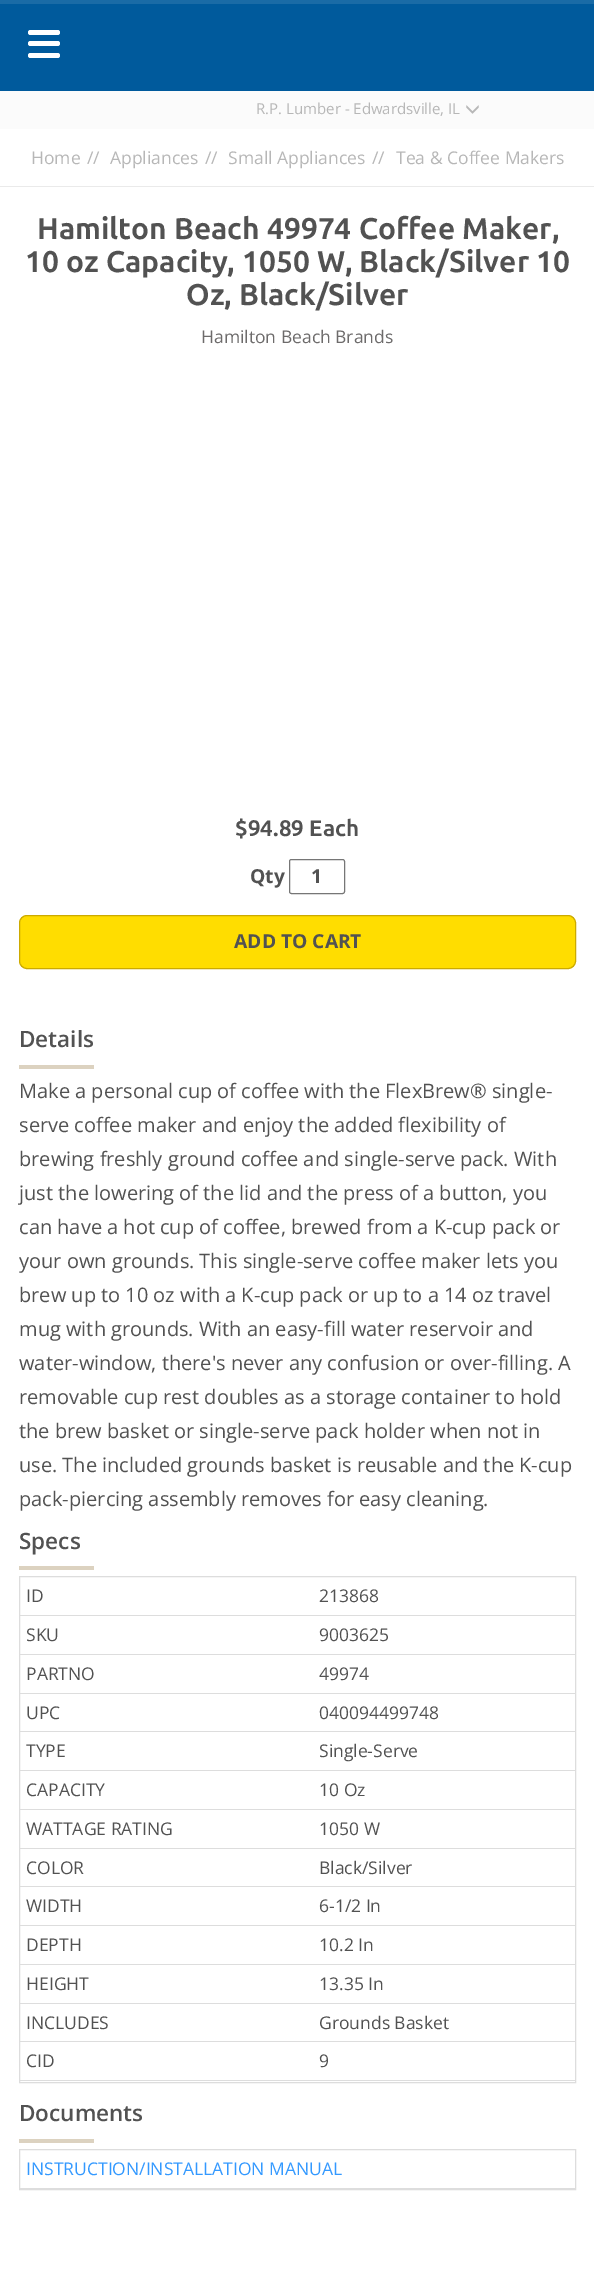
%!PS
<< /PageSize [594 2294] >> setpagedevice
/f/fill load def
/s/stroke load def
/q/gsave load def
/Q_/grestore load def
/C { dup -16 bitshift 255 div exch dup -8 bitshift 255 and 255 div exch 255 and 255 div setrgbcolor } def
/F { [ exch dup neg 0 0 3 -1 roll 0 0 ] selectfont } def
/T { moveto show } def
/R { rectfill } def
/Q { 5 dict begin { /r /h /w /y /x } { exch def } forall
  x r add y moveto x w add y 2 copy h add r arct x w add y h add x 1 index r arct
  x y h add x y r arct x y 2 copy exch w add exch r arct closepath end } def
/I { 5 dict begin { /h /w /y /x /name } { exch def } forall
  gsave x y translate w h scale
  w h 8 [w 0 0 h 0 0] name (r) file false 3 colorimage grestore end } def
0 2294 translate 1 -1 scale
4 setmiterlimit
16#FFFFFF C
0 0 594 2294 R
16#005A9C C
0 4 594 87 R
16#1A6BA6 C
0 0 594 4 R
16#FFFFFF C
28 30 32 5 2.5 Q f
28 41 32 5 2.5 Q f
28 53 32 5 2.5 Q f
16#FBFBFB C
0 91 594 38 R
/OpenSans-Regular 15 F
16#B7B7B7 C
(R.P. Lumber - Edwardsville, IL) 256 114 T
(1.rgb) 466 105 13 9 I
16#EAEAEA C
0 186 594 1 R
/OpenSans-Regular 17.5 F
16#B7B7B7 C
(Home) 31 164 T
(//) 87 164 T
(Appliances) 110 164 T
(//) 205 164 T
(Small Appliances) 228 164 T
(//) 372 164 T
(Tea & Coffee Makers) 396 164 T
/Ubuntu-Bold 30 F
16#525252 C
(Hamilton Beach 49974 Coffee Maker,) 37 239 T
(10 oz Capacity, 1050 W, Black/Silver 10) 25 272 T
(Oz, Black/Silver) 186 305 T
/OpenSans-Regular 17.5 F
16#6D6B6B C
(Hamilton Beach Brands) 201 343 T
/Ubuntu-Bold 22.5 F
16#525252 C
($94.89 Each) 235 836 T
/OpenSans-Bold 19.25 F
(Qty) 250 883 T
16#767676 C
289.5 859.5 55 34 2 Q s
16#525252 C
(1) 311 883 T
16#FFDD00 C
19.5 915.5 556 53 7.5 Q q f Q_
16#CCAA00 C
s
16#525252 C
(ADD TO CART) 234 948 T
/OpenSans-SemiBold 22.5 F
(Details) 19 1047 T
16#DCD2C0 C
19 1065 75 4 R
/OpenSans-Regular 20 F
16#525252 C
(Make a personal cup of coffee with the FlexBrew® single-) 19 1098 T
(serve coffee maker and enjoy the added flexibility of) 19 1132 T
(brewing freshly ground coffee and single-serve pack. With) 19 1166 T
(just the lowering of the lid and the press of a button, you) 19 1200 T
(can have a hot cup of coffee, brewed from a K-cup pack or) 19 1234 T
(your own grounds. This single-serve coffee maker lets you) 19 1268 T
(brew up to 10 oz with a K-cup pack or up to a 14 oz travel) 19 1302 T
(mug with grounds. With an easy-fill water reservoir and) 19 1336 T
(water-window, there's never any confusion or over-filling. A) 19 1370 T
(removable cup rest doubles as a storage container to hold) 19 1404 T
(the brew basket or single-serve pack holder when not in) 19 1438 T
(use. The included grounds basket is reusable and the K-cup) 19 1472 T
(pack-piercing assembly removes for easy cleaning.) 19 1506 T
/OpenSans-SemiBold 22.5 F
(Specs) 19 1549 T
16#DCD2C0 C
19 1566 75 4 R
16#DDDDDD C
19.5 1576.5 556 506 rectstroke
/OpenSans-Regular 17.5 F
16#525252 C
(ID) 26 1602 T
16#DDDDDD C
20 1615 555 1 R
16#525252 C
(213868) 319 1602 T
(SKU) 26 1641 T
16#DDDDDD C
20 1654 555 1 R
16#525252 C
(9003625) 319 1641 T
(PARTNO) 26 1680 T
16#DDDDDD C
20 1693 555 1 R
16#525252 C
(49974) 319 1680 T
(UPC) 26 1719 T
16#DDDDDD C
20 1731 555 1 R
16#525252 C
(040094499748) 319 1719 T
(TYPE) 26 1757 T
16#DDDDDD C
20 1770 555 1 R
16#525252 C
(Single-Serve) 319 1757 T
(CAPACITY) 26 1796 T
16#DDDDDD C
20 1809 555 1 R
16#525252 C
(10 Oz) 319 1796 T
(WATTAGE RATING) 26 1835 T
16#DDDDDD C
20 1848 555 1 R
16#525252 C
(1050 W) 319 1835 T
(COLOR) 26 1874 T
16#DDDDDD C
20 1886 555 1 R
16#525252 C
(Black/Silver) 319 1874 T
(WIDTH) 26 1912 T
16#DDDDDD C
20 1925 555 1 R
16#525252 C
(6-1/2 In) 319 1912 T
(DEPTH) 26 1951 T
16#DDDDDD C
20 1964 555 1 R
16#525252 C
(10.2 In) 319 1951 T
(HEIGHT) 26 1990 T
16#DDDDDD C
20 2003 555 1 R
16#525252 C
(13.35 In) 319 1990 T
(INCLUDES) 26 2029 T
16#DDDDDD C
20 2041 555 1 R
16#525252 C
(Grounds Basket) 319 2029 T
(CID) 26 2067 T
16#DDDDDD C
20 2080 555 1 R
16#525252 C
(9) 319 2067 T
/OpenSans-SemiBold 22.5 F
(Documents) 19 2121 T
16#DCD2C0 C
19 2139 75 4 R
16#DDDDDD C
19.5 2149.5 556 40 rectstroke
20 2188 555 1 R
/OpenSans-Regular 17.5 F
16#3399FF C
(INSTRUCTION/INSTALLATION MANUAL) 26 2175 T
showpage
